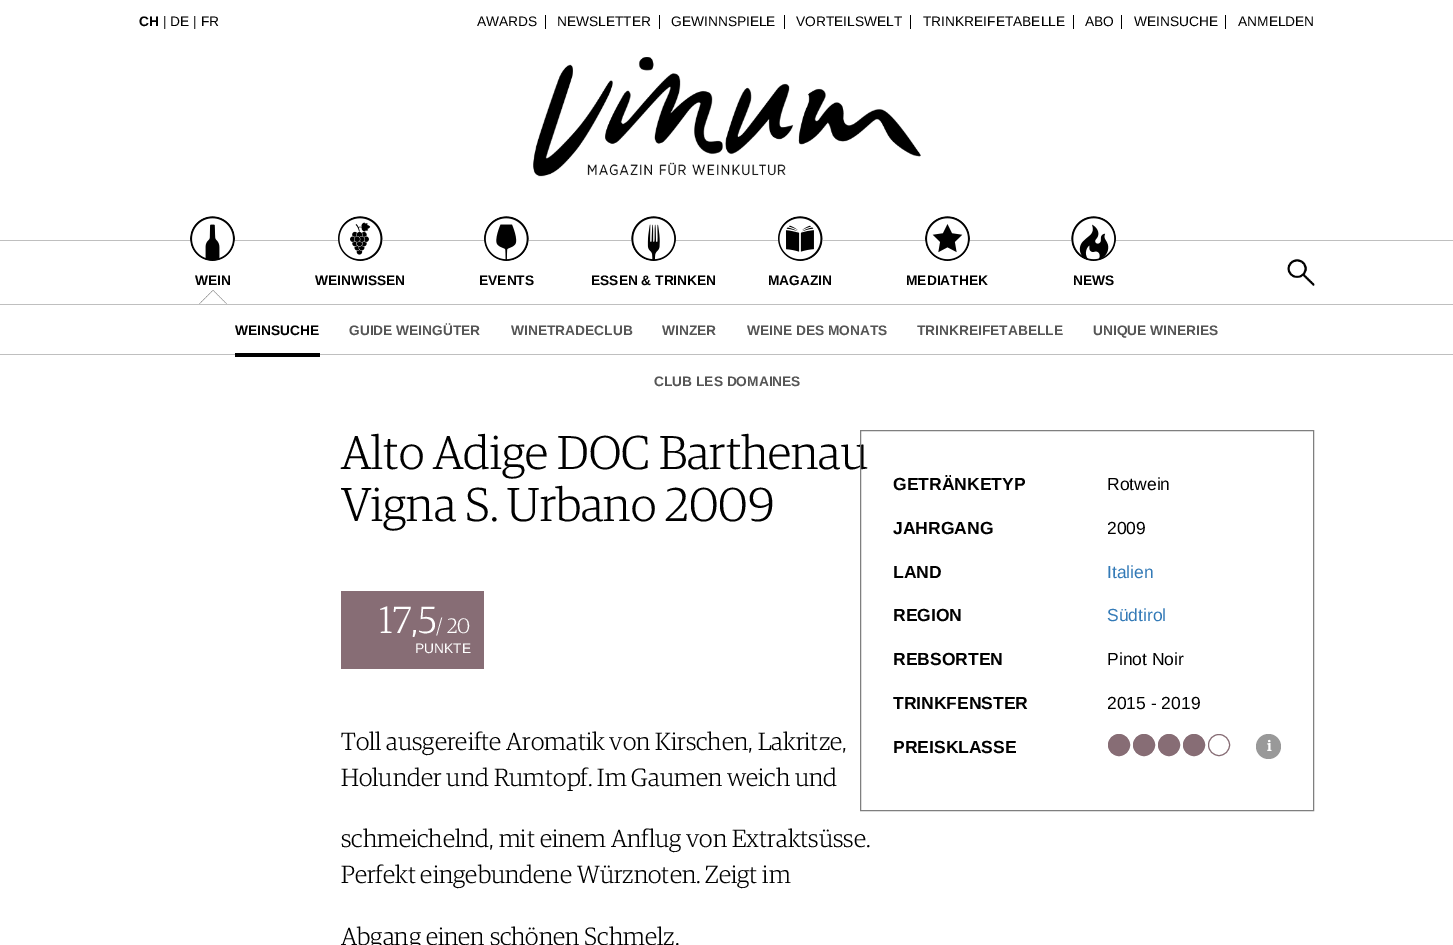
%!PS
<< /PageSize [1453 945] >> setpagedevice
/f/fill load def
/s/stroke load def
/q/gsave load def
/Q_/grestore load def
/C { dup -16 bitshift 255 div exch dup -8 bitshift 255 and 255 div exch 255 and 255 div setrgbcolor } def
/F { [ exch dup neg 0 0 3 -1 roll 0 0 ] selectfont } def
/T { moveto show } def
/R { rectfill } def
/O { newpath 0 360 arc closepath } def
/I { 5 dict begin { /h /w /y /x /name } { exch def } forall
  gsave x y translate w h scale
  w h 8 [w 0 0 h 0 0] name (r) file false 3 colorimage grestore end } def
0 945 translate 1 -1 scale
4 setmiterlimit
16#FFFFFF C
0 0 1453 945 R
/LiberationSans-Bold 13.75 F
16#000000 C
(CH) 139 26 T
/LiberationSans-Regular 13.75 F
(| DE | FR) 163 26 T
545 15 1 14 R
(AWARDS) 477 26 T
659 15 1 14 R
(NEWSLETTER) 557 26 T
784 15 1 14 R
(GEWINNSPIELE) 671 26 T
910 15 1 14 R
(VORTEILSWELT) 796 26 T
1073 15 1 14 R
(TRINKREIFETABELLE) 923 26 T
1121 15 1 14 R
(ABO) 1085 26 T
1225 15 1 14 R
(WEINSUCHE) 1134 26 T
(ANMELDEN) 1238 26 T
(1.rgb) 533 57 388 120 I
16#BFBFBF C
0 240 1453 1 R
0 304 1453 1 R
(2.rgb) 199 290 28 14 I
16#FFFFFF C
212.5 238.5 22.5 O f
(3.rgb) 190 216 45 45 I
/LiberationSans-Bold 13.75 F
16#000000 C
(WEIN) 195 285 T
16#FFFFFF C
360.5 238.5 22.5 O f
(4.rgb) 338 216 45 45 I
16#000000 C
(WEINWISSEN) 315 285 T
16#FFFFFF C
506.5 238.5 22.5 O f
(5.rgb) 484 216 45 45 I
16#000000 C
(EVENTS) 479 285 T
16#FFFFFF C
653.5 238.5 22.5 O f
(6.rgb) 631 216 45 45 I
16#000000 C
(ESSEN & TRINKEN) 591 285 T
16#FFFFFF C
800.5 238.5 22.5 O f
(7.rgb) 778 216 45 45 I
16#000000 C
(MAGAZIN) 768 285 T
16#FFFFFF C
947.5 238.5 22.5 O f
(8.rgb) 925 216 45 45 I
16#000000 C
(MEDIATHEK) 906 285 T
16#FFFFFF C
1093.5 238.5 22.5 O f
(9.rgb) 1071 216 45 45 I
16#000000 C
(NEWS) 1073 285 T
(10.rgb) 1287 258 28 29 I
16#BFBFBF C
0 354 1453 1 R
16#000000 C
235 353 85 4 R
(WEINSUCHE) 235 335 T
16#555555 C
(GUIDE WEINGÜTER) 349 335 T
(WINETRADECLUB) 511 335 T
(WINZER) 662 335 T
(WEINE DES MONATS) 747 335 T
(TRINKREIFETABELLE) 917 335 T
(UNIQUE WINERIES) 1093 335 T
(CLUB LES DOMAINES) 654 386 T
/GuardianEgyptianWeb-Light 47.5 F
16#000000 C
(Alto Adige DOC Barthenau) 341 469 T
(Vigna S. Urbano 2009) 341 521 T
16#876D75 C
341 591 143 78 R
/GuardianEgyptianWeb-Light 38 F
16#FFFFFF C
(17,5) 379 633 T
/GuardianEgyptianWeb-Light 21 F
(/ 20) 436 633 T
/LiberationSans-Regular 13.75 F
(PUNKTE) 415 653 T
/GuardianEgyptianWeb-Light 25 F
16#000000 C
(Toll ausgereifte Aromatik von Kirschen, Lakritze,) 341 750 T
(Holunder und Rumtopf. Im Gaumen weich und) 341 786 T
(schmeichelnd, mit einem Anflug von Extraktsüsse.) 341 847 T
(Perfekt eingebundene Würznoten. Zeigt im) 341 883 T
(Abgang einen schönen Schmelz.) 341 945 T
16#7F7F7F C
860.5 430.5 453 380 rectstroke
/LiberationSans-Bold 17.5 F
16#000000 C
(GETRÄNKETYP) 893 490 T
/LiberationSans-Regular 17.5 F
(Rotwein) 1107 490 T
/LiberationSans-Bold 17.5 F
(JAHRGANG) 893 534 T
/LiberationSans-Regular 17.5 F
(2009) 1107 534 T
/LiberationSans-Bold 17.5 F
(LAND) 893 578 T
/LiberationSans-Regular 17.5 F
16#337AB7 C
(Italien) 1107 578 T
/LiberationSans-Bold 17.5 F
16#000000 C
(REGION) 893 621 T
/LiberationSans-Regular 17.5 F
16#337AB7 C
(Südtirol) 1107 621 T
/LiberationSans-Bold 17.5 F
16#000000 C
(REBSORTEN) 893 665 T
/LiberationSans-Regular 17.5 F
(Pinot Noir) 1107 665 T
/LiberationSans-Bold 17.5 F
(TRINKFENSTER) 893 709 T
/LiberationSans-Regular 17.5 F
(2015 - 2019) 1107 709 T
/LiberationSans-Bold 17.5 F
(PREISKLASSE) 893 753 T
16#876D75 C
1119 745 10.5 O q f Q_
s
1144 745 10.5 O q f Q_
s
1169 745 10.5 O q f Q_
s
1194 745 10.5 O q f Q_
s
1219 745 10.5 O s
16#999999 C
1268.5 746.5 12.5 O f
/GuardianEgyptianWeb-SemiBold 15 F
16#FFFFFF C
(i) 1267 751 T
showpage
